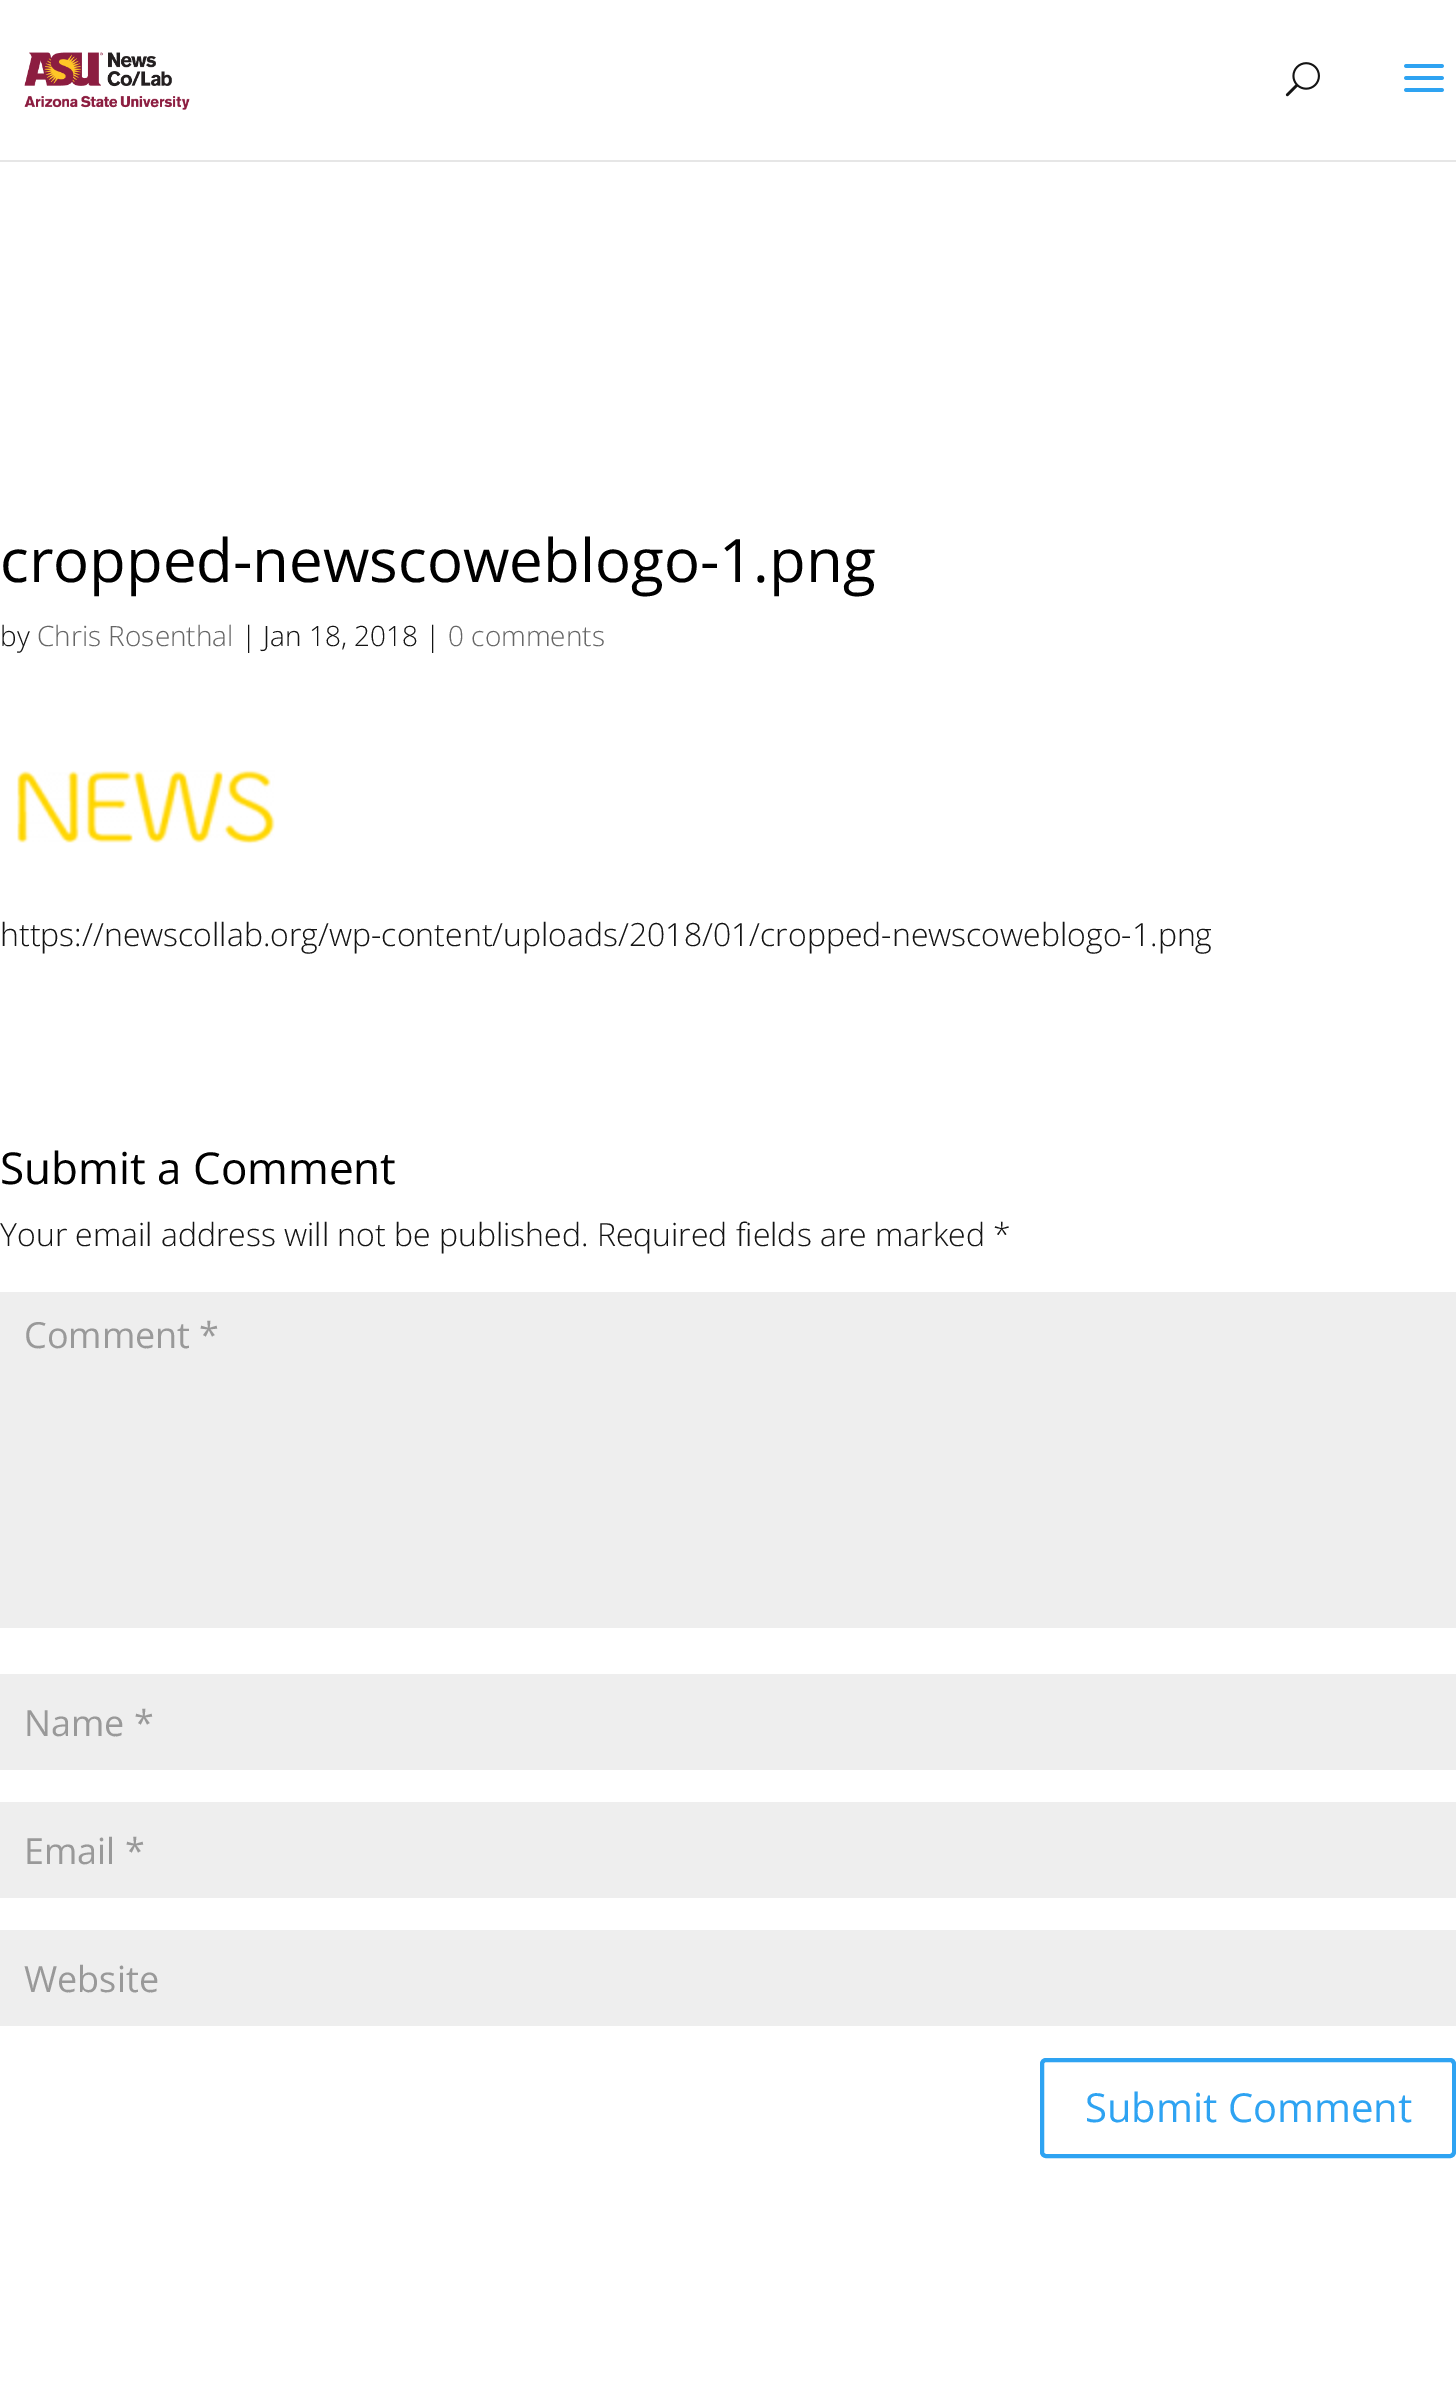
%!PS
<< /PageSize [1456 2383] >> setpagedevice
/s/stroke load def
/w/setlinewidth load def
/C { dup -16 bitshift 255 div exch dup -8 bitshift 255 and 255 div exch 255 and 255 div setrgbcolor } def
/F { [ exch dup neg 0 0 3 -1 roll 0 0 ] selectfont } def
/T { moveto show } def
/R { rectfill } def
/Q { 5 dict begin { /r /h /w /y /x } { exch def } forall
  x r add y moveto x w add y 2 copy h add r arct x w add y h add x 1 index r arct
  x y h add x y r arct x y 2 copy exch w add exch r arct closepath end } def
/I { 5 dict begin { /h /w /y /x /name } { exch def } forall
  gsave x y translate w h scale
  w h 8 [w 0 0 h 0 0] name (r) file false 3 colorimage grestore end } def
0 2383 translate 1 -1 scale
4 setmiterlimit
16#FFFFFF C
0 0 1456 2383 R
16#E6E6E6 C
0 160 1456 2 R
(1.rgb) 24 52 166 58 I
(2.rgb) 1285 62 35 35 I
(3.rgb) 1404 64 40 28 I
/OpenSans-Regular 60 F
16#000000 C
(cropped-newscoweblogo-1.png) 0 582 T
/OpenSans-Light 28 F
16#141414 C
(by) 0 646 T
16#666666 C
(Chris Rosenthal) 37 646 T
16#141414 C
(| Jan 18, 2018 |) 241 646 T
16#666666 C
(0 comments) 448 646 T
(4.rgb) 17 770 258 74 I
/OpenSans-Light 32 F
16#141414 C
(https://newscollab.org/wp-content/uploads/2018/01/cropped-newscoweblogo-1.png) 0 946 T
/OpenSans-Regular 44 F
16#000000 C
(Submit a Comment) 0 1184 T
/OpenSans-Light 32 F
16#141414 C
(Your email address will not be published. Required fields are marked *) 0 1246 T
16#EEEEEE C
0 1292 1456 336 R
/OpenSans-Regular 36 F
16#999999 C
(Comment *) 24 1348 T
16#EEEEEE C
0 1674 1456 96 R
16#999999 C
(Name *) 24 1736 T
16#EEEEEE C
0 1802 1456 96 R
16#999999 C
(Email *) 24 1864 T
16#EEEEEE C
0 1930 1456 96 R
16#999999 C
(Website) 24 1992 T
16#2EA3F2 C
4 w
1042 2060 412 96 4 Q s
/OpenSans-Regular 40 F
(Submit Comment) 1085 2122 T
showpage
